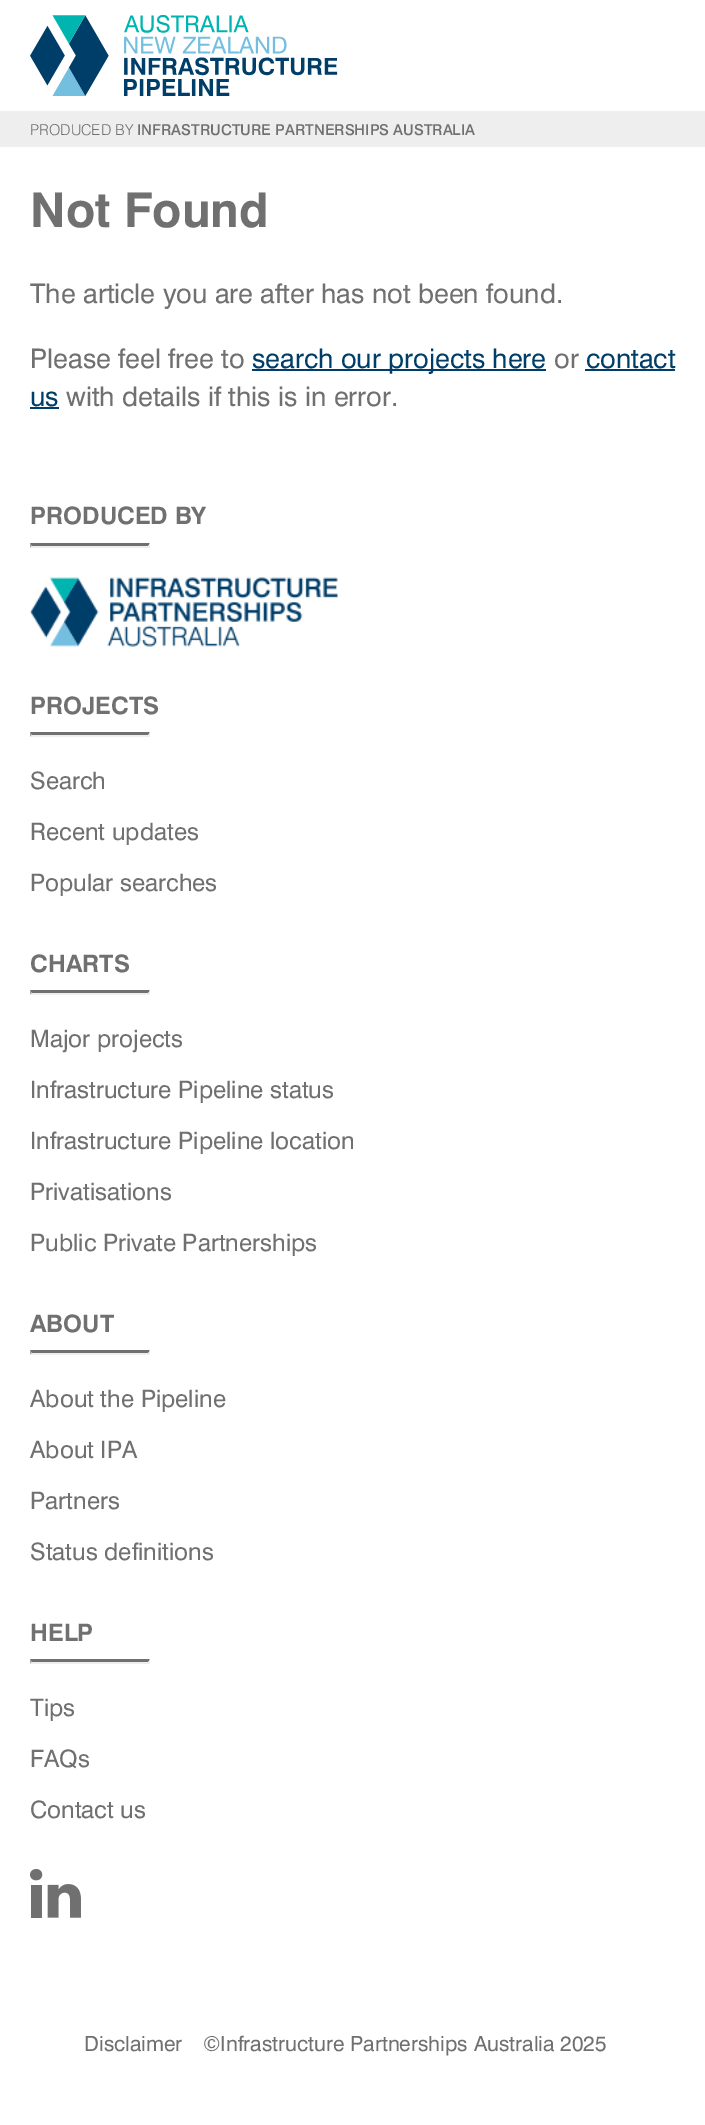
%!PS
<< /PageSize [705 2125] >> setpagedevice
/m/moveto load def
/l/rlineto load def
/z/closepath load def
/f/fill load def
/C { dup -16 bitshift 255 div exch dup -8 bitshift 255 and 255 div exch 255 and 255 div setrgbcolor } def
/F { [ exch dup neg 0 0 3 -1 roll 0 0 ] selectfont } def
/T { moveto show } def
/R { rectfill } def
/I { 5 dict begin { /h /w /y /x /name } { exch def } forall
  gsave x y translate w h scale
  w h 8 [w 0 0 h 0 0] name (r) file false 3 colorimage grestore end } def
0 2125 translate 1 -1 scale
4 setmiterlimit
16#FFFFFF C
0 0 705 2125 R
(1.rgb) 30 15 308 81 I
16#EEEEEE C
0 111 705 36 R
/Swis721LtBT-Light 15 F
16#707070 C
(PRODUCED BY) 30 135 T
/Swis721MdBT-Medium 15 F
(INFRASTRUCTURE PARTNERSHIPS AUSTRALIA) 137 135 T
/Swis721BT-Bold 48 F
(Not Found) 30 227 T
/Swis721BT-Regular 27 F
(The article you are after has not been found.) 30 303 T
(Please feel free to) 30 368 T
16#003E6A C
252 369 294 2 R
(search our projects here) 252 368 T
16#707070 C
(or) 554 368 T
16#003E6A C
(contact) 586 368 T
585 369 90 2 R
(us) 30 406 T
30 407 29 2 R
16#707070 C
(with details if this is in error.) 66 406 T
/Swis721BT-Bold 24 F
(PRODUCED BY) 30 524 T
30 543 m 120 0 l -2 3 l -116 0 l z f
16#EEEEEE C
150 543 m 0 4.5 l -1.5 -1.5 l z f
30 546 120 2 R
16#9F9F9F C
30 547.5 m 0 -4.5 l 1.5 3 l z f
(2.rgb) 30 577 308 70 I
16#707070 C
(PROJECTS) 30 714 T
30 732 m 120 0 l -2 3 l -116 0 l z f
16#EEEEEE C
150 732 m 0 4.5 l -1.5 -1.5 l z f
30 735 120 2 R
16#9F9F9F C
30 736.5 m 0 -4.5 l 1.5 3 l z f
/Swis721BT-Regular 24 F
16#707070 C
(Search) 30 789 T
(Recent updates) 30 840 T
(Popular searches) 30 891 T
/Swis721BT-Bold 24 F
(CHARTS) 30 972 T
30 990 m 120 0 l -2 3 l -116 0 l z f
16#EEEEEE C
150 990 m 0 4.5 l -1.5 -1.5 l z f
30 993 120 2 R
16#9F9F9F C
30 994.5 m 0 -4.5 l 1.5 3 l z f
/Swis721BT-Regular 24 F
16#707070 C
(Major projects) 30 1047 T
(Infrastructure Pipeline status) 30 1098 T
(Infrastructure Pipeline location) 30 1149 T
(Privatisations) 30 1200 T
(Public Private Partnerships) 30 1251 T
/Swis721BT-Bold 24 F
(ABOUT) 30 1332 T
30 1350 m 120 0 l -2 3 l -116 0 l z f
16#EEEEEE C
150 1350 m 0 4.5 l -1.5 -1.5 l z f
30 1353 120 2 R
16#9F9F9F C
30 1354.5 m 0 -4.5 l 1.5 3 l z f
/Swis721BT-Regular 24 F
16#707070 C
(About the Pipeline) 30 1407 T
(About IPA) 30 1458 T
(Partners) 30 1509 T
(Status definitions) 30 1560 T
/Swis721BT-Bold 24 F
(HELP) 30 1641 T
30 1659 m 120 0 l -2 3 l -116 0 l z f
16#EEEEEE C
150 1659 m 0 4.5 l -1.5 -1.5 l z f
30 1662 120 2 R
16#9F9F9F C
30 1663.5 m 0 -4.5 l 1.5 3 l z f
/Swis721BT-Regular 24 F
16#707070 C
(Tips) 30 1716 T
(FAQs) 30 1767 T
(Contact us) 30 1818 T
(3.rgb) 30 1869 51 49 I
/Swis721BT-Regular 21 F
(Disclaimer) 84 2051 T
(©Infrastructure Partnerships Australia 2025) 203 2051 T
showpage
